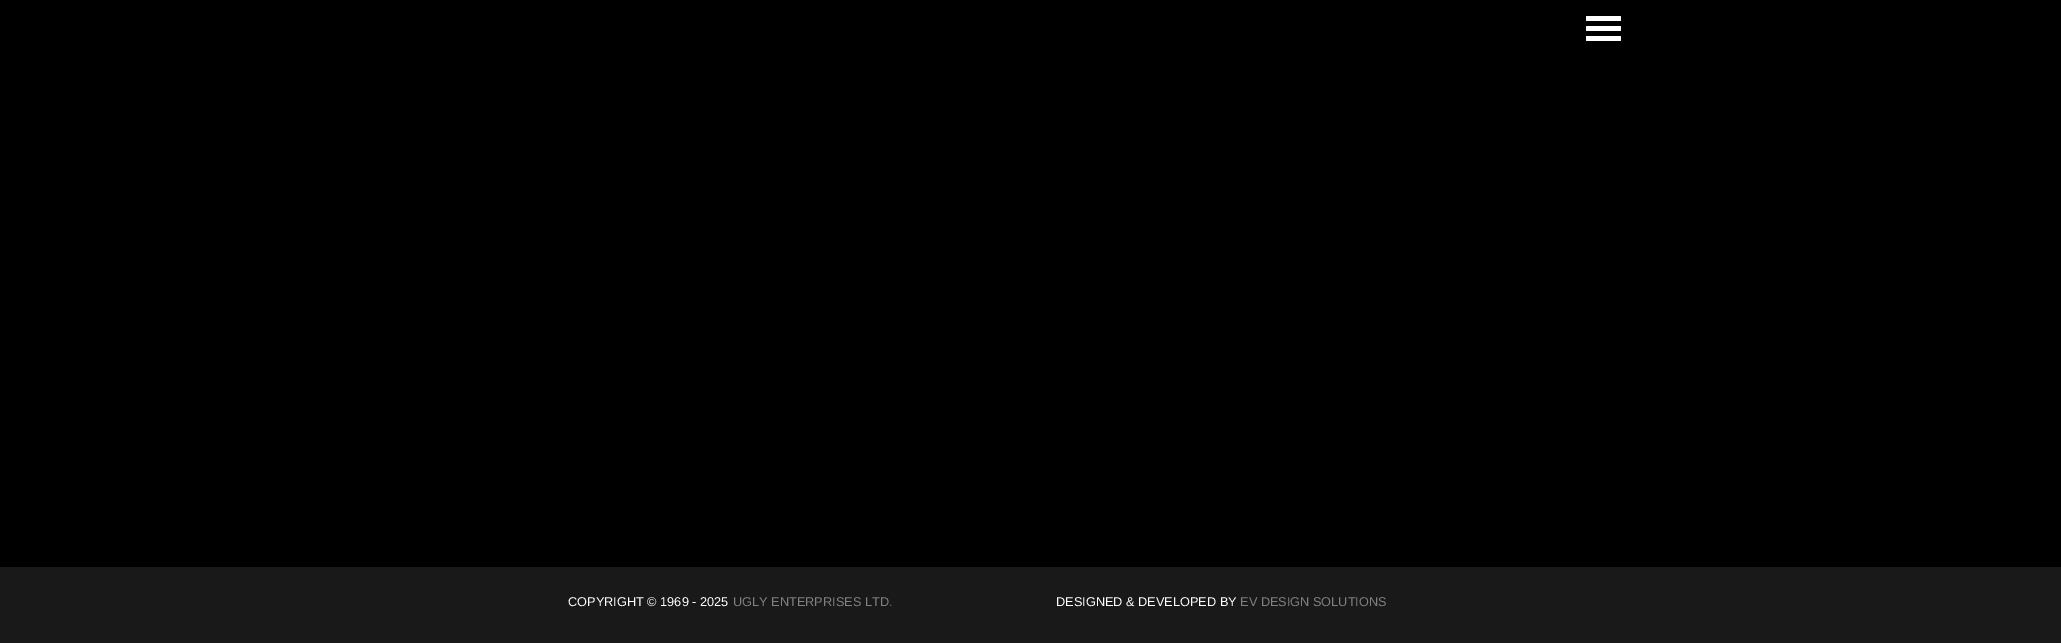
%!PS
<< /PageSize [2061 643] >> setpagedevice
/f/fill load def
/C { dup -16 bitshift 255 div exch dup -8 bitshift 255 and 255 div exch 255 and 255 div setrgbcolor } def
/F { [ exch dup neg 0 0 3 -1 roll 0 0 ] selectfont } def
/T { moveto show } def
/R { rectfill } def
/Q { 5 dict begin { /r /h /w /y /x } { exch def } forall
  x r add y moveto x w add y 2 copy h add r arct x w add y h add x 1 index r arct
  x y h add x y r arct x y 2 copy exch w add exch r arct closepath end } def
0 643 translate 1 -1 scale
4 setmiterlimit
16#191919 C
0 0 2061 643 R
16#000000 C
0 0 2061 567 R
16#FFFFFF C
1586 26 35 5 1 Q f
1586 16 35 5 1 Q f
1586 36 35 5 1 Q f
/LiberationSans-Regular 12.75 F
(COPYRIGHT © 1969 - 2025) 568 606 T
16#818181 C
(UGLY ENTERPRISES LTD.) 733 606 T
16#FFFFFF C
(DESIGNED & DEVELOPED BY) 1056 606 T
16#818181 C
(EV DESIGN SOLUTIONS) 1240 606 T
showpage
